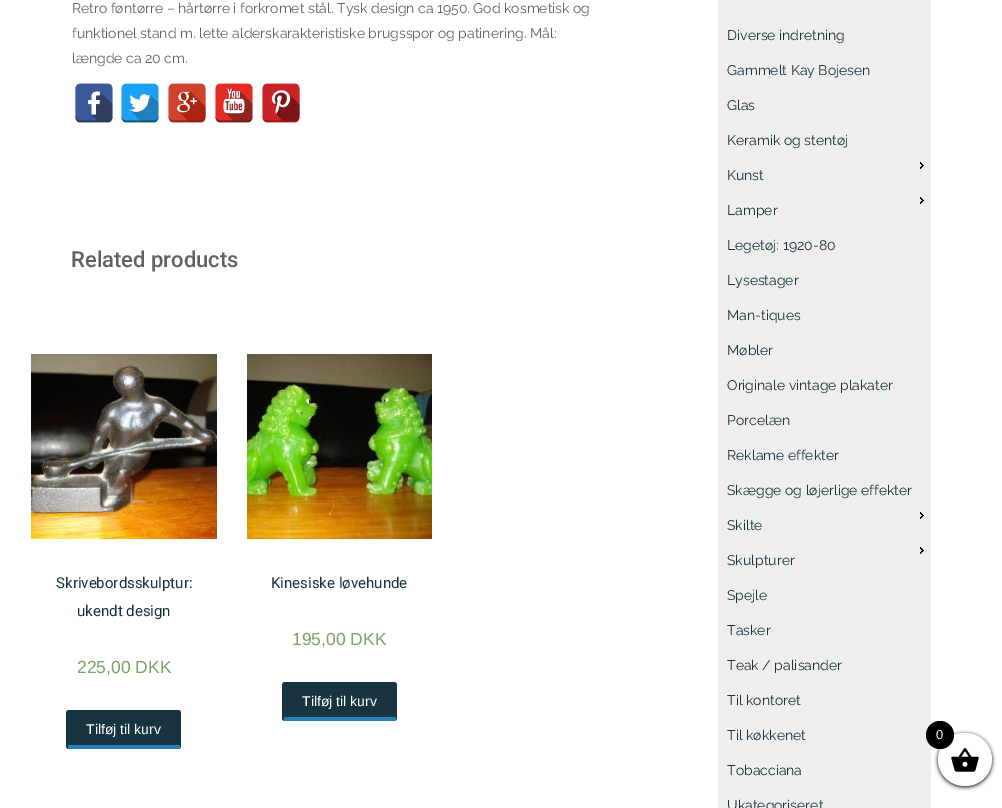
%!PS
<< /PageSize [1002 808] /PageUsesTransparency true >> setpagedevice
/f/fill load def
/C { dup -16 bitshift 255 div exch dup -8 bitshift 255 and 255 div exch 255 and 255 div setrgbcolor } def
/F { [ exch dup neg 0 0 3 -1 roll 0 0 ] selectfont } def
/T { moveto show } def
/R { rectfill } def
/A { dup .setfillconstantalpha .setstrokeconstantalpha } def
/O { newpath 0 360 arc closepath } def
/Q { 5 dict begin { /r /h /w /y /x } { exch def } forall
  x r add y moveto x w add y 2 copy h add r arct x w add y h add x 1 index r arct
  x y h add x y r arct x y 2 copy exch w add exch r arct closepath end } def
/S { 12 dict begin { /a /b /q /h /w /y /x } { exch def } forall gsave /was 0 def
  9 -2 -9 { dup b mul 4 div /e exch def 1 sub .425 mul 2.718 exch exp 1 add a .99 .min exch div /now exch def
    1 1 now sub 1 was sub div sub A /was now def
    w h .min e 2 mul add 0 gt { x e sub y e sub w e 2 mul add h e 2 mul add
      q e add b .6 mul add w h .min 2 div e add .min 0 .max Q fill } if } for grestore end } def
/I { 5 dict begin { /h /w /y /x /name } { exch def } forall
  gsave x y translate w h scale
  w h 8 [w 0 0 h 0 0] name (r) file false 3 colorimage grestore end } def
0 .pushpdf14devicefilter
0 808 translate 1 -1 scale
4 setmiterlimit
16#FFFFFF C
0 0 1002 808 R
/Raleway-Regular 14 F
16#616161 C
(Retro føntørre – hårtørre i forkromet stål. Tysk design ca 1950. God kosmetisk og) 72 13 T
(funktionel stand m. lette alderskarakteristiske brugsspor og patinering. Mål:) 72 38 T
(længde ca 20 cm.) 72 63 T
(1.rgb) 75 83 38 40 I
(2.rgb) 121 83 38 40 I
(3.rgb) 168 83 38 40 I
(4.rgb) 215 83 38 40 I
(5.rgb) 262 83 38 40 I
/Roboto-Medium 22 F
(Related products) 71 267 T
(6.rgb) 31 354 186 185 I
/Roboto-Regular 15 F
16#193441 C
(Skrivebordsskulptur:) 56 588 T
(ukendt design) 77 616 T
/LiberationSans-Regular 17.5 F
16#77A464 C
(225,00 DKK) 77 673 T
16#193441 C
66 710 115 39 3 Q f
16#2980B9 C
68 745 112 4 R
/LiberationSans-Regular 14 F
16#FFFFFF C
(Tilføj til kurv) 86 734 T
(7.rgb) 247 354 185 185 I
/Roboto-Regular 15 F
16#193441 C
(Kinesiske løvehunde) 271 588 T
/LiberationSans-Regular 17.5 F
16#77A464 C
(195,00 DKK) 292 645 T
16#193441 C
282 682 115 39 3 Q f
16#2980B9 C
284 717 112 4 R
/LiberationSans-Regular 14 F
16#FFFFFF C
(Tilføj til kurv) 302 706 T
16#EEEEEE C
718 0 213 808 R
/Raleway-Regular 14 F
16#193441 C
(Diverse indretning) 727 40 T
(Gammelt Kay Bojesen) 727 75 T
(Glas) 727 110 T
(Keramik og stentøj) 727 145 T
(8.rgb) 920 162 4 7 I
(Kunst) 727 180 T
(8.rgb) 920 197 4 7 I
(Lamper) 727 215 T
(Legetøj: 1920-80) 727 250 T
(Lysestager) 727 285 T
(Man-tiques) 727 320 T
(Møbler) 727 355 T
(Originale vintage plakater) 727 390 T
(Porcelæn) 727 425 T
(Reklame effekter) 727 460 T
(Skægge og løjerlige effekter) 727 495 T
(8.rgb) 920 512 4 7 I
(Skilte) 727 530 T
(8.rgb) 920 547 4 7 I
(Skulpturer) 727 565 T
(Spejle) 727 600 T
(Tasker) 727 635 T
(Teak / palisander) 727 670 T
(Til kontoret) 727 705 T
(Til køkkenet) 727 740 T
(Tobacciana) 727 775 T
(Ukategoriseret) 727 810 T
16#000000 C
938 734 54 53 26.5 2 1 S
16#FFFFFF C
938 733 54 53 26.5 Q f
16#000000 C
940 735 14 O f
/LiberationSans-Regular 13 F
16#FFFFFF C
(0) 936 739 T
(9.rgb) 951 748 28 24 I
.poppdf14devicefilter showpage
